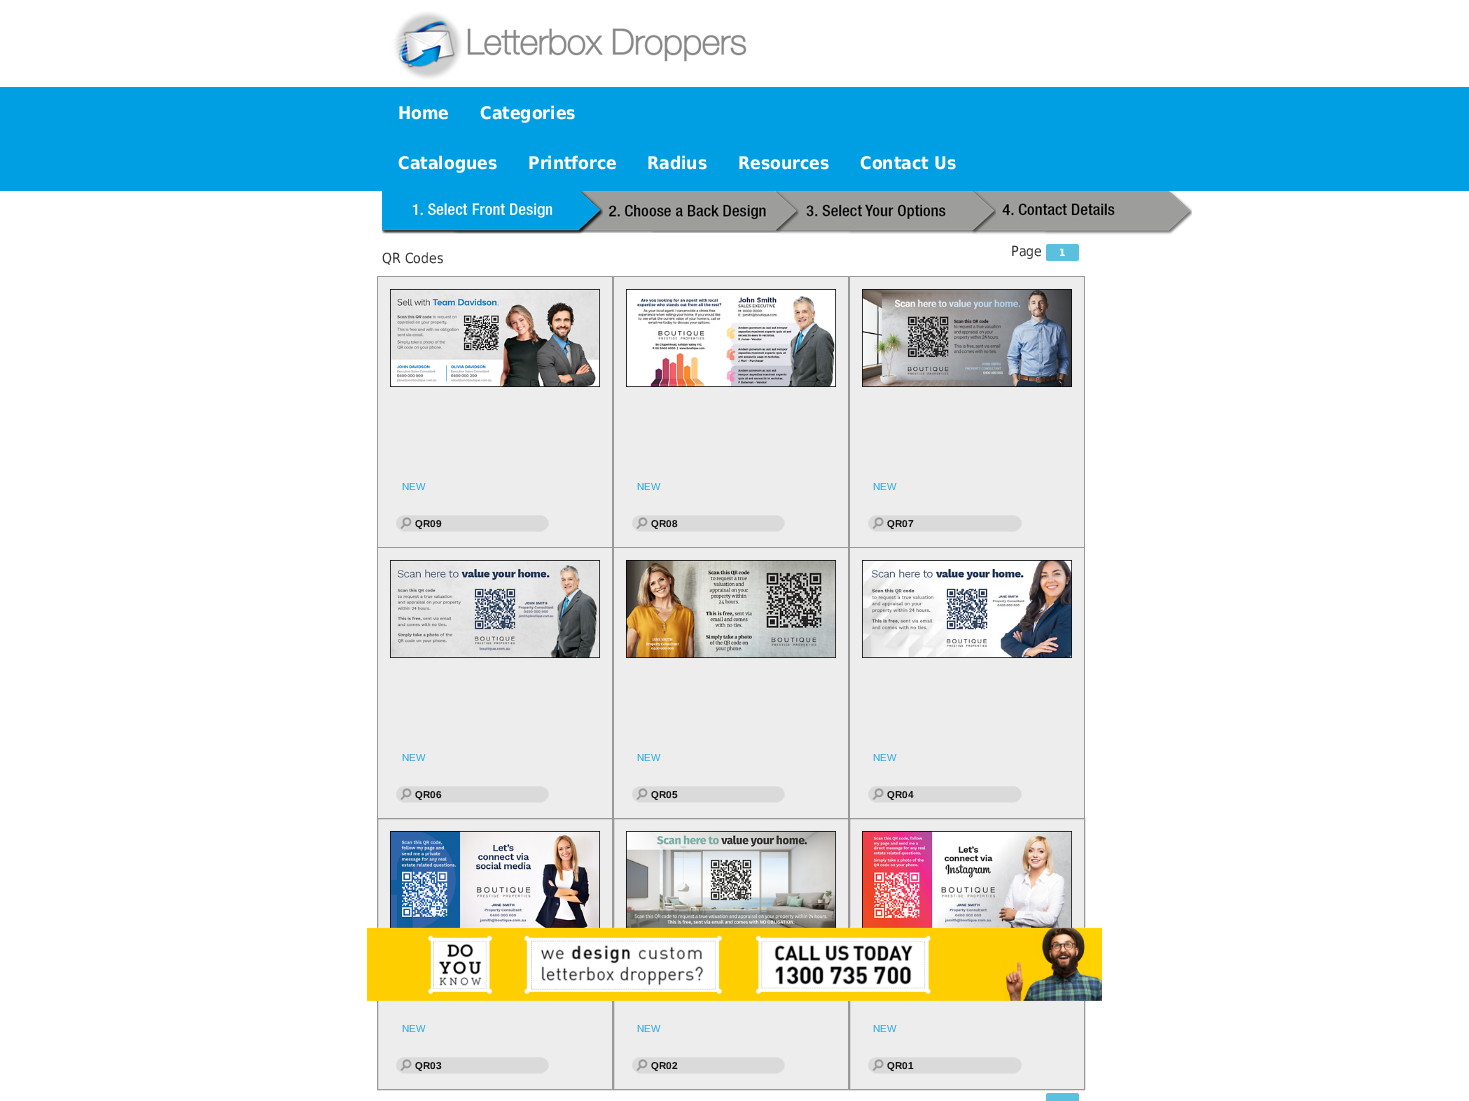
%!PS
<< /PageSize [1469 1101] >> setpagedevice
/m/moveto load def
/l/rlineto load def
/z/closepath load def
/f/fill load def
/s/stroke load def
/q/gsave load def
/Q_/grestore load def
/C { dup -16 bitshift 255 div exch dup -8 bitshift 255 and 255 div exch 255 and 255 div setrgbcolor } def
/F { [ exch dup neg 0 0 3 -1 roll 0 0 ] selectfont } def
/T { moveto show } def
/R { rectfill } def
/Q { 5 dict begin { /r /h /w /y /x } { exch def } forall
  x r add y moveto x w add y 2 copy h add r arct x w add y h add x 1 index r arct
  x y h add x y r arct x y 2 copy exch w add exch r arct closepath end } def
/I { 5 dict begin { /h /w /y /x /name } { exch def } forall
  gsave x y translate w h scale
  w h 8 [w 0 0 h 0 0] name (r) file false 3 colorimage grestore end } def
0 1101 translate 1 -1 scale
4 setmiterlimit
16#FFFFFF C
0 0 1469 1101 R
(1.rgb) 390 11 357 69 I
16#009FE3 C
0 87 1469 104 R
/DejaVuSans-Bold 17.5 F
16#FFFFFF C
(Home) 398 119 T
(Categories) 480 119 T
(Catalogues) 398 169 T
(Printforce) 528 169 T
(Radius) 647 169 T
(Resources) 738 169 T
(Contact Us) 860 169 T
(2.rgb) 382 191 810 44 I
/DejaVuSans-Regular 14 F
16#333333 C
(QR Codes) 382 263 T
(Page) 1011 256 T
16#5BC0DE C
1046 244 33 17 2.5 Q f
/DejaVuSans-Bold 10 F
16#FFFFFF C
(1) 1059 256 T
16#EDEDED C
378 277 234 270 R
16#999999 C
377 276 708 1 R
612 276 2 271 R
377 276 1 271 R
(3.rgb) 390 289 210 98 I
/LiberationSans-Regular 10 F
16#2DA9E1 C
(NEW) 402 490 T
(4.rgb) 396 515 153 17 I
/LiberationSans-Bold 10 F
16#111111 C
(QR09) 415 527 T
16#EDEDED C
614 277 234 270 R
16#999999 C
848 276 2 271 R
(5.rgb) 626 289 210 98 I
/LiberationSans-Regular 10 F
16#2DA9E1 C
(NEW) 637 490 T
(4.rgb) 632 515 153 17 I
/LiberationSans-Bold 10 F
16#111111 C
(QR08) 651 527 T
16#EDEDED C
850 277 234 270 R
16#999999 C
1084 276 1 271 R
(6.rgb) 862 289 210 98 I
/LiberationSans-Regular 10 F
16#2DA9E1 C
(NEW) 873 490 T
(7.rgb) 868 515 154 17 I
/LiberationSans-Bold 10 F
16#111111 C
(QR07) 887 527 T
16#EDEDED C
378 548 234 270 R
16#999999 C
377 547 708 1 R
612 547 2 271 R
377 547 1 271 R
(8.rgb) 390 560 210 98 I
/LiberationSans-Regular 10 F
16#2DA9E1 C
(NEW) 402 761 T
(4.rgb) 396 786 153 17 I
/LiberationSans-Bold 10 F
16#111111 C
(QR06) 415 798 T
16#EDEDED C
614 548 234 270 R
16#999999 C
848 547 2 271 R
(9.rgb) 626 560 210 98 I
/LiberationSans-Regular 10 F
16#2DA9E1 C
(NEW) 637 761 T
(4.rgb) 632 786 153 17 I
/LiberationSans-Bold 10 F
16#111111 C
(QR05) 651 798 T
16#EDEDED C
850 548 234 270 R
16#999999 C
1084 547 1 271 R
(10.rgb) 862 560 210 98 I
/LiberationSans-Regular 10 F
16#2DA9E1 C
(NEW) 873 761 T
(7.rgb) 868 786 154 17 I
/LiberationSans-Bold 10 F
16#111111 C
(QR04) 887 798 T
16#EDEDED C
377.5 818.5 m 235 0 l 0 271 l -235 0 l z q f Q_
16#999999 C
s
(11.rgb) 390 831 210 97 I
/LiberationSans-Regular 10 F
16#2DA9E1 C
(NEW) 402 1032 T
(4.rgb) 396 1057 153 17 I
/LiberationSans-Bold 10 F
16#111111 C
(QR03) 415 1069 T
16#EDEDED C
613.5 818.5 m 235 0 l 0 271 l -235 0 l z q f Q_
16#999999 C
s
(12.rgb) 626 831 210 97 I
/LiberationSans-Regular 10 F
16#2DA9E1 C
(NEW) 637 1032 T
(4.rgb) 632 1057 153 17 I
/LiberationSans-Bold 10 F
16#111111 C
(QR02) 651 1069 T
16#EDEDED C
849.5 818.5 m 235 0 l 0 271 l -235 0 l z q f Q_
16#999999 C
s
(13.rgb) 862 831 210 97 I
/LiberationSans-Regular 10 F
16#2DA9E1 C
(NEW) 873 1032 T
(7.rgb) 868 1057 154 17 I
/LiberationSans-Bold 10 F
16#111111 C
(QR01) 887 1069 T
16#5BC0DE C
1046 1093 33 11 2.5 Q f
16#FFFFFF C
377 928 708 73 R
(14.rgb) 367 927 735 74 I
showpage
